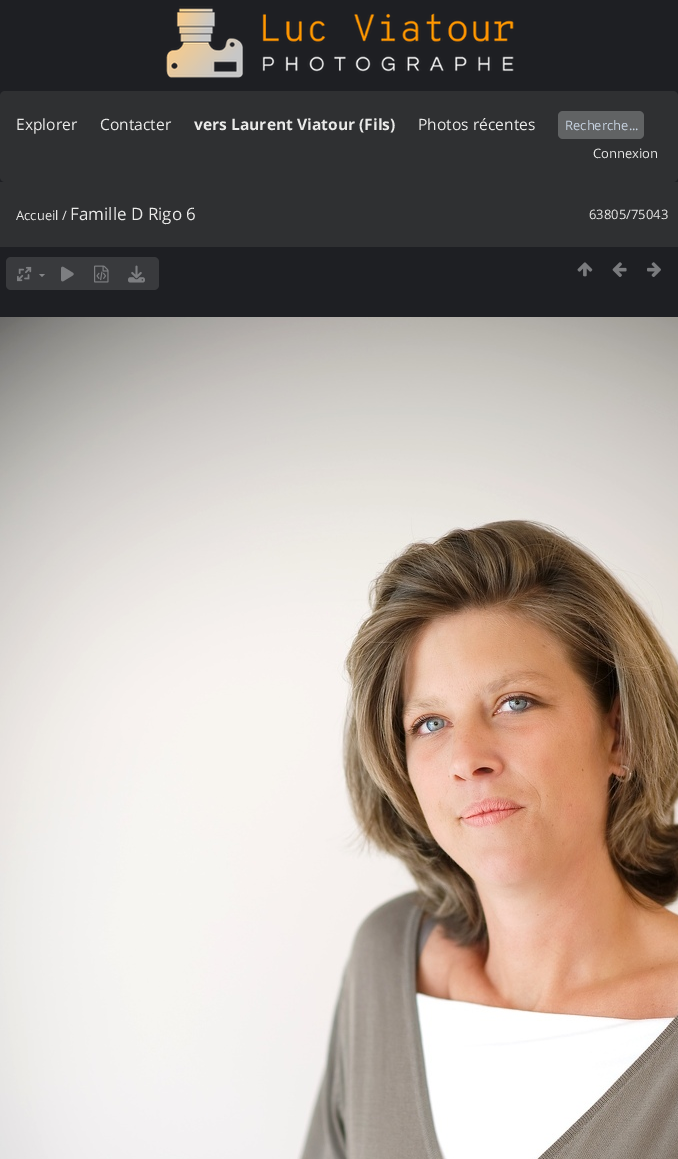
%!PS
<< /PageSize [678 1159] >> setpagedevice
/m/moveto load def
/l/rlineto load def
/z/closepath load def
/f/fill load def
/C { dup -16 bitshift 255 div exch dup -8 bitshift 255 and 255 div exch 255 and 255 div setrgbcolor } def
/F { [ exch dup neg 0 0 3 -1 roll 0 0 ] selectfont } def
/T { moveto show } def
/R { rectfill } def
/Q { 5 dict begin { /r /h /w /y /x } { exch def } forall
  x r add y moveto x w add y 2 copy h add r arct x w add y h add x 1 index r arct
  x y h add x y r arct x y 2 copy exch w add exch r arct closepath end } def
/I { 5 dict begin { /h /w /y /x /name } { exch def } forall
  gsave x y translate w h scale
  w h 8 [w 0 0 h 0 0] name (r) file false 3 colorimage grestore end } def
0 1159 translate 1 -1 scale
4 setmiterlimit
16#1E1F23 C
0 0 678 1159 R
(1.rgb) 166 6 348 72 I
16#2F3032 C
0 91 678 91 5 Q f
/OpenSans-Regular 15.6 F
16#EAEAE9 C
(Explorer) 16 130 T
(Contacter) 100 130 T
/OpenSans-Bold 15.6 F
(vers Laurent Viatour \(Fils\)) 194 130 T
/OpenSans-Regular 15.6 F
(Photos récentes) 418 130 T
16#616364 C
558 111 86 28 5 Q f
/OpenSans-Regular 13 F
16#C7D3E1 C
(Recherche...) 565 130 T
16#EAEAE9 C
(Connexion) 593 158 T
16#2F3032 C
0 182 678 65 R
16#EAEAE9 C
(Accueil /) 16 220 T
/OpenSans-Regular 17 F
(Famille D Rigo 6) 70 220 T
/OpenSans-Regular 13 F
(63805/75043) 589 219 T
16#393A3D C
6 257 153 33 5 Q f
(2.rgb) 17 266 15 16 I
16#848588 C
39 274 m 6 0 l -3 3 l z f
(3.rgb) 61 266 13 16 I
(4.rgb) 94 265 15 18 I
(5.rgb) 128 265 17 18 I
(6.rgb) 577 262 16 15 I
(7.rgb) 612 262 15 15 I
(8.rgb) 647 262 14 15 I
(9.rgb) 0 317 678 842 I
showpage
